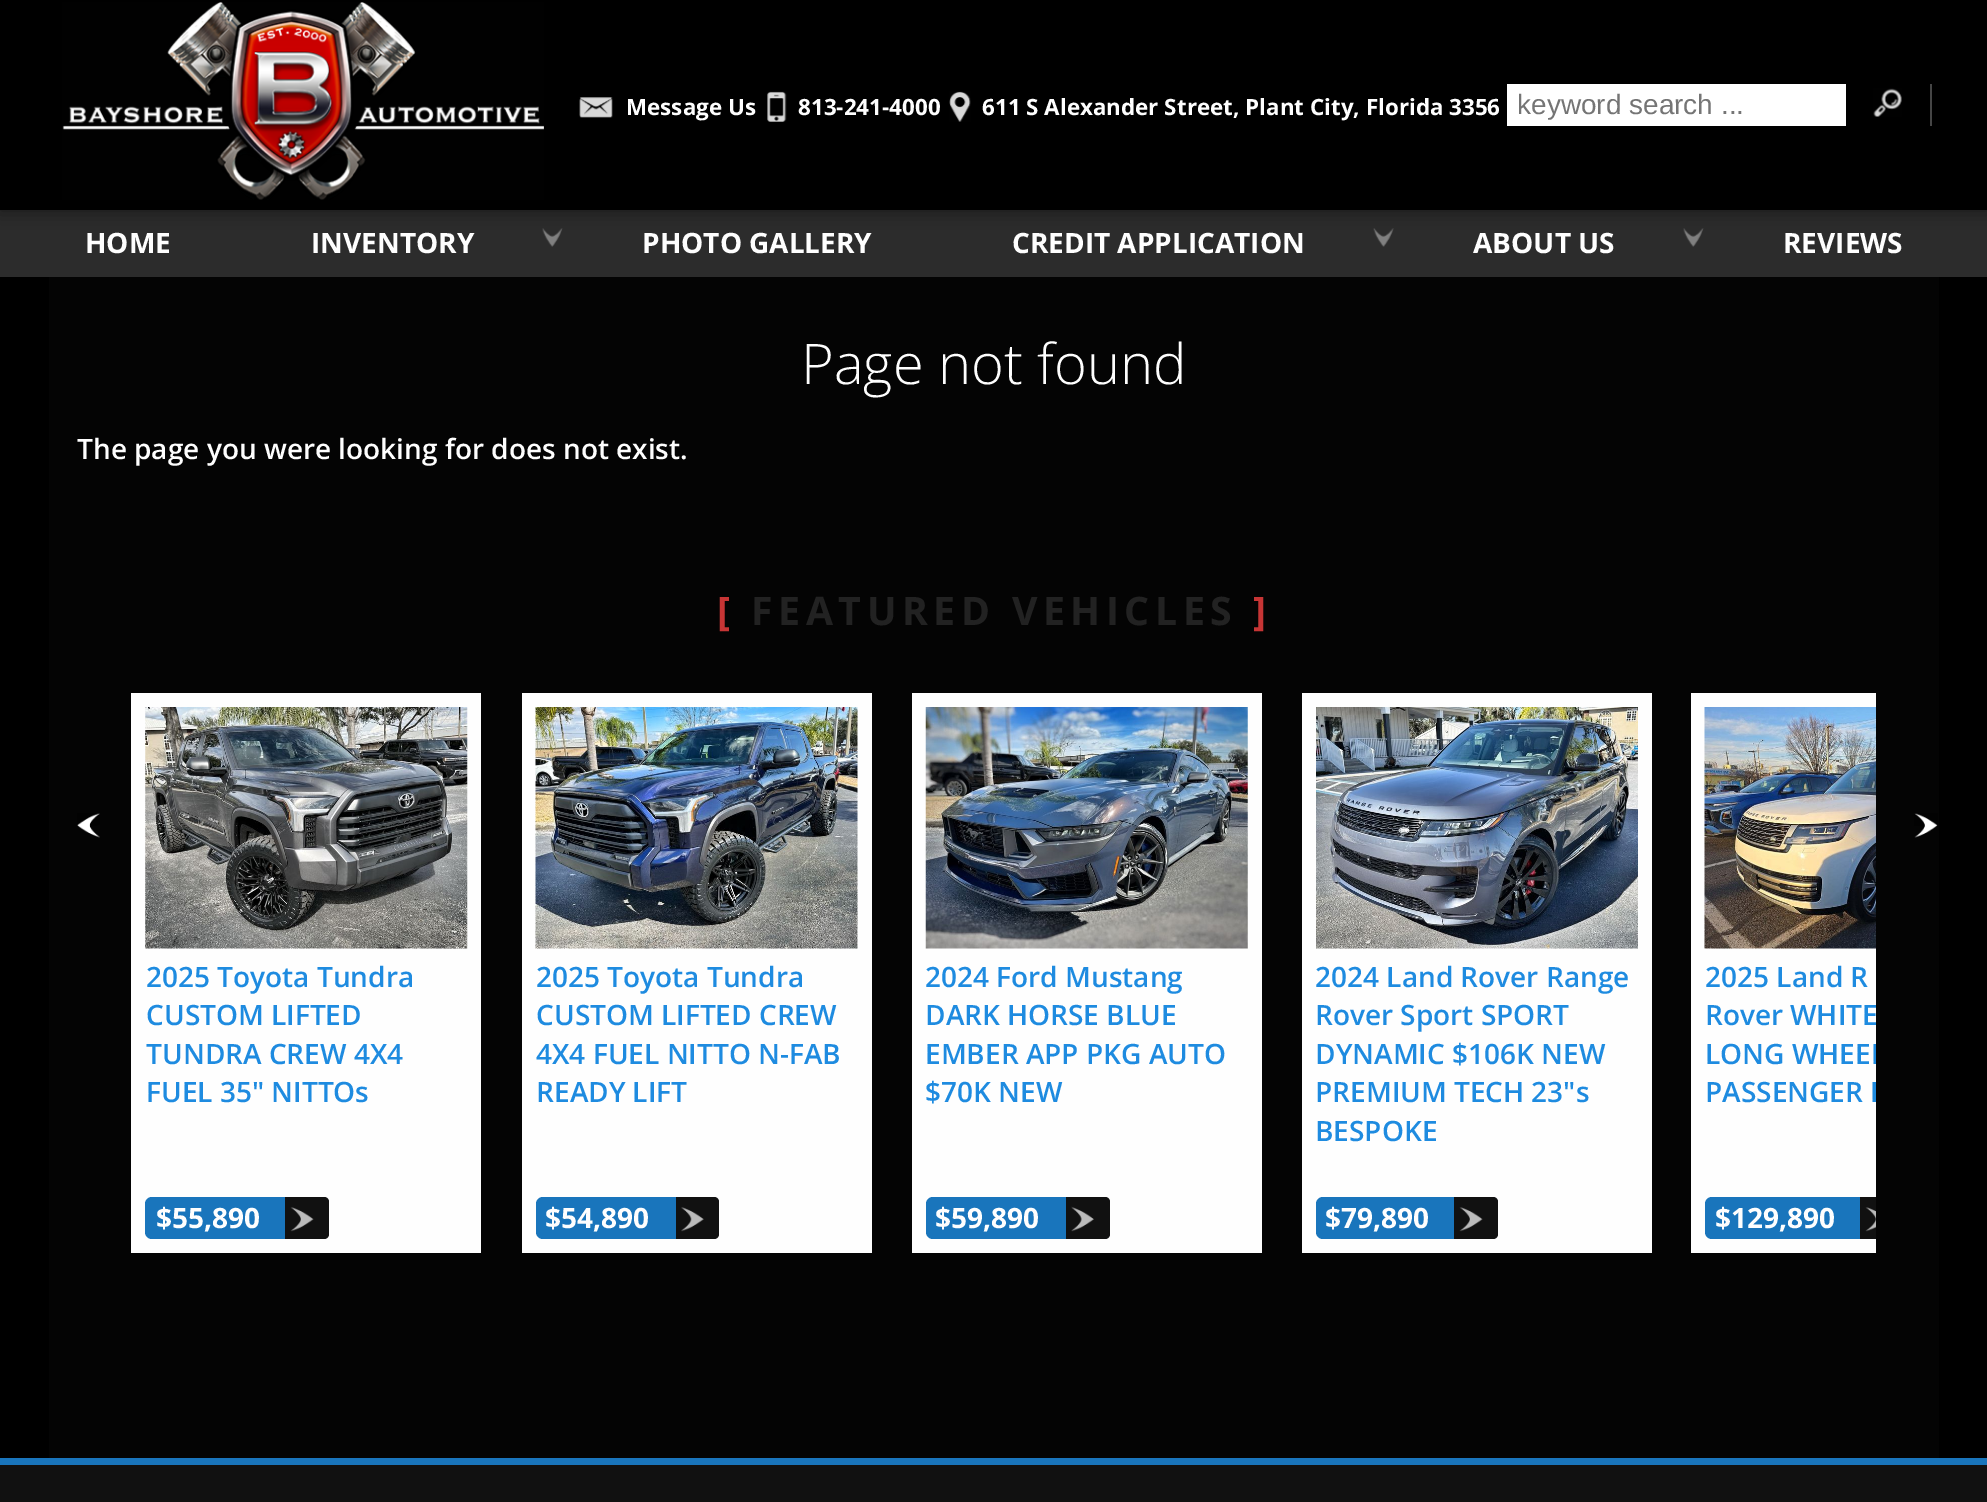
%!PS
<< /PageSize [1987 1502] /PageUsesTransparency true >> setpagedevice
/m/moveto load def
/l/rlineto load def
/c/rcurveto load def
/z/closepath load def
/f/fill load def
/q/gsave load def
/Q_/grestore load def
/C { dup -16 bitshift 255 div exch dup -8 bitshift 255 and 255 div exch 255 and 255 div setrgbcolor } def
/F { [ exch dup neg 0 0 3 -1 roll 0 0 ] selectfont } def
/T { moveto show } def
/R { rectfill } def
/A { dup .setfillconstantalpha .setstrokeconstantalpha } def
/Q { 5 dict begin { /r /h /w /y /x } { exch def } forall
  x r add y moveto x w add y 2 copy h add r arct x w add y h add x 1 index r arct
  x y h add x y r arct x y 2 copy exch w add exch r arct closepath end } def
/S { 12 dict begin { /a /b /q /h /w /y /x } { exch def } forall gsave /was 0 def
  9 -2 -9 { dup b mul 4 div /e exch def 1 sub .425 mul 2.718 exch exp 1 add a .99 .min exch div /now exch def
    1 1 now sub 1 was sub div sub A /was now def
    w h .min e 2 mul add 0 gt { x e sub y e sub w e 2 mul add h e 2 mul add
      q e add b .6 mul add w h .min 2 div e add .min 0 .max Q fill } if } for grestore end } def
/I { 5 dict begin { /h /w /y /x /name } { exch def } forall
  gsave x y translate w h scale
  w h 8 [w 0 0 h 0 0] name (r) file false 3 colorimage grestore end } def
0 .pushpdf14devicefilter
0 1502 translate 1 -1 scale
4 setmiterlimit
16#000000 C
0 0 1987 1502 R
16#2C2C2C C
0 210 1987 67 R
(6.rgb) 542 228 21 19 I
(7.rgb) 1373 228 21 19 I
(6.rgb) 1683 228 21 19 I
16#000000 C
0 0 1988 210 0 9 .5 S
(1.rgb) 62 2 482 198 I
(2.rgb) 579 97 34 21 I
/OpenSans-Bold 22.4 F
16#FEFEFE C
(Message Us) 626 115 T
(3.rgb) 767 91 20 31 I
(813-241-4000) 798 115 T
(4.rgb) 949 91 22 31 I
(611 S Alexander Street, Plant City, Florida 3356) 982 115 T
16#454545 C
1930 84 2 42 R
16#FFFFFF C
1507 84 339 42 R
/LiberationSans-Regular 28 F
16#757575 C
(keyword search ...) 1517 114 T
(5.rgb) 1873 88 29 29 I
/OpenSans-Bold 28 F
16#FEFEFE C
(HOME) 85 253 T
(INVENTORY) 311 253 T
(PHOTO GALLERY) 642 253 T
(CREDIT APPLICATION) 1012 253 T
(ABOUT US) 1473 253 T
(REVIEWS) 1783 253 T
16#040404 C
49 277 1890 1181 R
/OpenSans-Light 56 F
16#FEFEFE C
(Page not found) 801 384 T
/OpenSans-SemiBold 28 F
(The page you were looking for does not exist.) 77 459 T
/OpenSans-Bold 39.25 F
16#C73535 C
717 625 m 5.6 0 ([) ashow
16#222222 C
751 625 m 5.6 0 (FEATURED VEHICLES) ashow
16#C73535 C
1253 625 m 5.6 0 (]) ashow
(8.rgb) 77 813 23 25 I
(9.rgb) 1914 813 24 25 I
16#FEFEFE C
131 693 350 560 R
(10.rgb) 145 707 323 242 I
/OpenSans-SemiBold 28 F
16#1E8BE0 C
(2025 Toyota Tundra) 146 987 T
(CUSTOM LIFTED) 146 1025 T
(TUNDRA CREW 4X4) 146 1064 T
(FUEL 35" NITTOs) 146 1102 T
16#1975BC C
145 1197 184 42 7 Q f
/OpenSans-Bold 28 F
16#FEFEFE C
($55,890) 156 1228 T
16#111111 C
285 1197 m 39 0 l 3 0 5 2 5 5 c 0 32 l 0 3 -2 5 -5 5 c -39 0 l z f
(11.rgb) 290 1207 24 25 I
16#FEFEFE C
522 693 350 560 R
(12.rgb) 535 707 323 242 I
/OpenSans-SemiBold 28 F
16#1E8BE0 C
(2025 Toyota Tundra) 536 987 T
(CUSTOM LIFTED CREW) 536 1025 T
(4X4 FUEL NITTO N-FAB) 536 1064 T
(READY LIFT) 536 1102 T
16#1975BC C
536 1197 183 42 7 Q f
/OpenSans-Bold 28 F
16#FEFEFE C
($54,890) 545 1228 T
16#111111 C
676 1197 m 38 0 l 3 0 5 2 5 5 c 0 32 l 0 3 -2 5 -5 5 c -38 0 l z f
(13.rgb) 681 1207 23 25 I
16#FEFEFE C
912 693 350 560 R
(14.rgb) 925 707 323 242 I
/OpenSans-SemiBold 28 F
16#1E8BE0 C
(2024 Ford Mustang) 925 987 T
(DARK HORSE BLUE) 925 1025 T
(EMBER APP PKG AUTO) 925 1064 T
($70K NEW) 925 1102 T
16#1975BC C
926 1197 184 42 7 Q f
/OpenSans-Bold 28 F
16#FEFEFE C
($59,890) 935 1228 T
16#111111 C
1066 1197 m 39 0 l 3 0 5 2 5 5 c 0 32 l 0 3 -2 5 -5 5 c -39 0 l z f
(15.rgb) 1071 1206 23 26 I
16#FEFEFE C
1302 693 350 560 R
(16.rgb) 1316 707 322 242 I
/OpenSans-SemiBold 28 F
16#1E8BE0 C
(2024 Land Rover Range) 1315 987 T
(Rover Sport SPORT) 1315 1025 T
(DYNAMIC $106K NEW) 1315 1064 T
(PREMIUM TECH 23"s) 1315 1102 T
(BESPOKE) 1315 1141 T
16#1975BC C
1316 1197 182 42 7 Q f
/OpenSans-Bold 28 F
16#FEFEFE C
($79,890) 1325 1228 T
16#111111 C
1454 1197 m 39 0 l 3 0 5 2 5 5 c 0 32 l 0 3 -2 5 -5 5 c -39 0 l z f
(17.rgb) 1459 1207 24 25 I
16#FEFEFE C
1691 693 185 560 R
(18.rgb) 1704 707 172 242 I
/OpenSans-SemiBold 28 F
16#1E8BE0 C
(2025 Land R) 1705 987 T
(Rover) 1705 1025 T
q
112 672 1764 600 rectclip
(WHITE) 1790 1025 T
(LONG WHEEL) 1705 1064 T
(PASSENGER L) 1705 1102 T
Q_
16#1975BC C
1712 1197 m 164 0 l 0 42 l -164 0 l -4 0 -7 -3 -7 -7 c 0 -28 l 0 -4 3 -7 7 -7 c z f
/OpenSans-Bold 28 F
16#FEFEFE C
($129,890) 1715 1228 T
16#111111 C
1860 1197 16 42 R
(19.rgb) 1865 1207 11 25 I
0 1465 1987 37 R
16#1975BC C
0 1458 1987 7 R
.poppdf14devicefilter showpage
